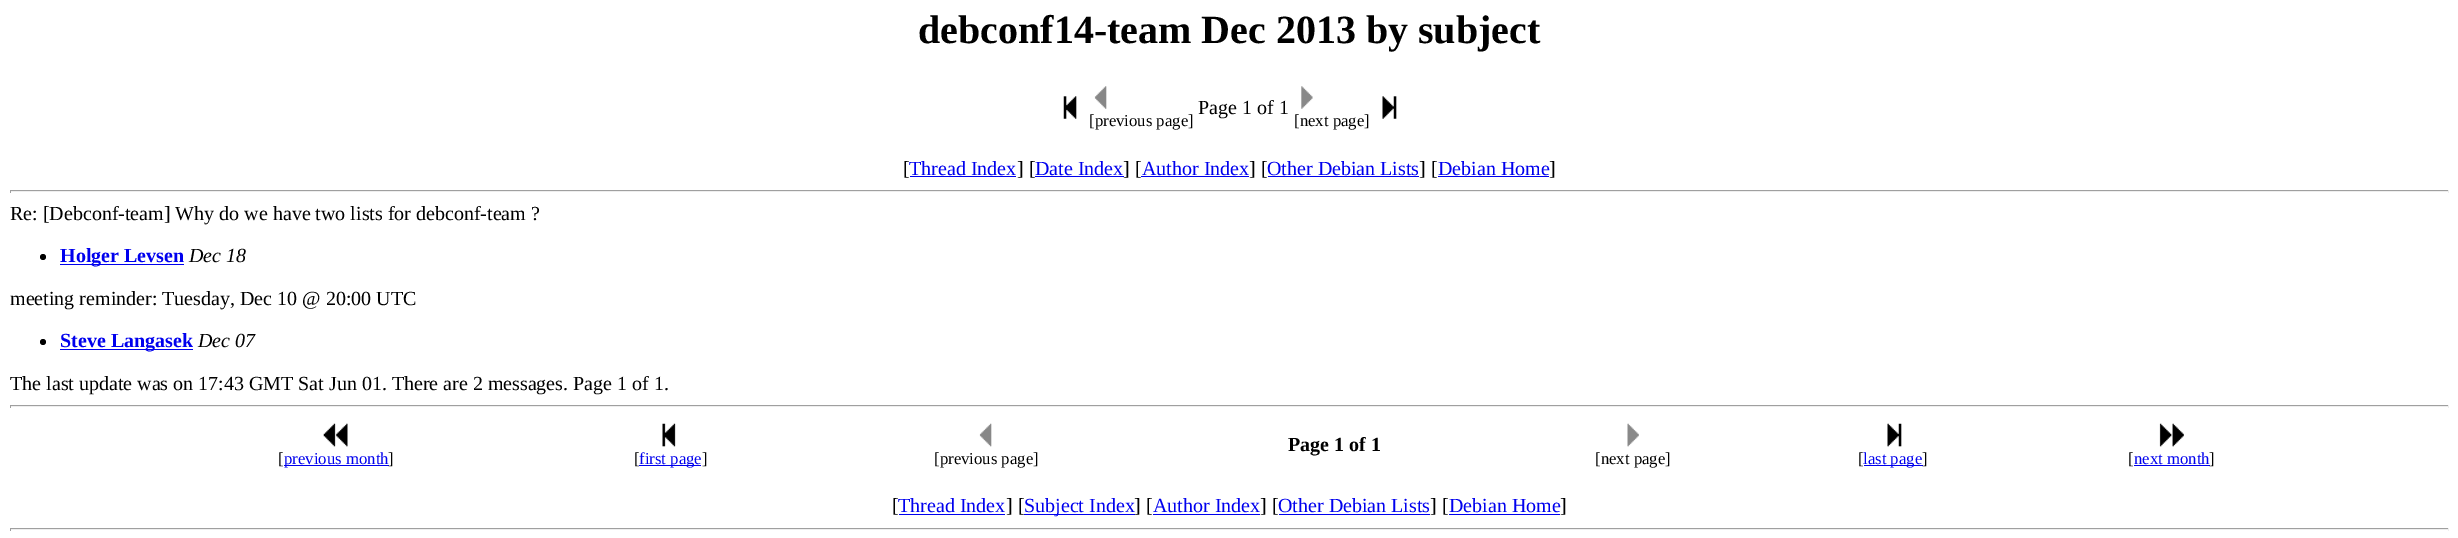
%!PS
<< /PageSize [2458 538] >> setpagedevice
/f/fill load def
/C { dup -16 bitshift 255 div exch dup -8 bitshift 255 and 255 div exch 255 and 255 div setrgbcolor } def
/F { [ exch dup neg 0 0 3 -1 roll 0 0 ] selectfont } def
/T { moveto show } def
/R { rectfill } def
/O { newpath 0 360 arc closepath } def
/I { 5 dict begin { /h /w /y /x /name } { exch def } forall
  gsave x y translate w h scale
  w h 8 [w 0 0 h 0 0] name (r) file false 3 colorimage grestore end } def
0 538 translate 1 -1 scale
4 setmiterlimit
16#FFFFFF C
0 0 2458 538 R
/LiberationSerif-Bold 40 F
16#000000 C
(debconf14-team Dec 2013 by subject) 918 43 T
(1.rgb) 1063 96 14 23 I
/LiberationSerif-Regular 20 F
(Page 1 of 1) 1198 114 T
(2.rgb) 1382 96 15 23 I
(3.rgb) 1094 86 13 23 I
/LiberationSerif-Regular 16.75 F
([previous page]) 1089 126 T
(4.rgb) 1301 86 12 23 I
([next page]) 1294 126 T
/LiberationSerif-Regular 20 F
([) 903 175 T
16#0000EE C
(Thread Index) 909 175 T
910 176 106 1 R
16#000000 C
(] [) 1017 175 T
16#0000EE C
(Date Index) 1035 175 T
1035 176 89 1 R
16#000000 C
(] [) 1123 175 T
16#0000EE C
(Author Index) 1142 175 T
1141 176 108 1 R
16#000000 C
(] [) 1249 175 T
16#0000EE C
(Other Debian Lists) 1267 175 T
1268 176 151 1 R
16#000000 C
(] [) 1419 175 T
16#0000EE C
(Debian Home) 1438 175 T
1438 176 111 1 R
16#000000 C
(]) 1549 175 T
16#9F9F9F C
10 190 2439 1 R
16#EEEEEE C
2448 190 1 3 R
10 191 2439 1 R
16#9F9F9F C
10 190 1 3 R
16#000000 C
(Re: [Debconf-team] Why do we have two lists for debconf-team ?) 10 220 T
43 257 3 O f
16#0000EE C
60 264 124 1 R
/LiberationSerif-Bold 20 F
(Holger Levsen) 60 262 T
/LiberationSerif-Italic 20 F
16#000000 C
(Dec 18) 189 262 T
/LiberationSerif-Regular 20 F
(meeting reminder: Tuesday, Dec 10 @ 20:00 UTC) 10 305 T
43 342 3 O f
16#0000EE C
60 349 133 1 R
/LiberationSerif-Bold 20 F
(Steve Langasek) 60 347 T
/LiberationSerif-Italic 20 F
16#000000 C
(Dec 07) 198 347 T
/LiberationSerif-Regular 20 F
(The last update was on 17:43 GMT Sat Jun 01. There are 2 messages. Page 1 of 1.) 10 390 T
16#9F9F9F C
10 405 2439 1 R
16#EEEEEE C
2448 405 1 3 R
10 406 2439 1 R
16#9F9F9F C
10 405 1 3 R
/LiberationSerif-Bold 20 F
16#000000 C
(Page 1 of 1) 1288 451 T
(5.rgb) 323 423 25 24 I
/LiberationSerif-Regular 16.75 F
([) 278 464 T
16#0000EE C
284 465 105 1 R
(previous month) 284 464 T
16#000000 C
(]) 388 464 T
(6.rgb) 662 423 14 24 I
([) 634 464 T
16#0000EE C
639 465 62 1 R
(first page) 639 464 T
16#000000 C
(]) 702 464 T
(7.rgb) 979 423 13 24 I
([previous page]) 934 464 T
(8.rgb) 1627 423 12 24 I
([next page]) 1595 464 T
(9.rgb) 1887 423 15 24 I
([) 1858 464 T
16#0000EE C
1864 465 59 1 R
(last page) 1863 464 T
16#000000 C
(]) 1922 464 T
(10.rgb) 2159 423 25 24 I
([) 2128 464 T
16#0000EE C
2134 465 76 1 R
(next month) 2134 464 T
16#000000 C
(]) 2209 464 T
/LiberationSerif-Regular 20 F
([) 892 512 T
16#0000EE C
(Thread Index) 898 512 T
899 514 106 1 R
16#000000 C
(] [) 1006 512 T
16#0000EE C
1024 514 111 1 R
(Subject Index) 1024 512 T
16#000000 C
(] [) 1134 512 T
16#0000EE C
(Author Index) 1153 512 T
1153 514 107 1 R
16#000000 C
(] [) 1260 512 T
16#0000EE C
(Other Debian Lists) 1278 512 T
1279 514 151 1 R
16#000000 C
(] [) 1430 512 T
16#0000EE C
(Debian Home) 1449 512 T
1449 514 111 1 R
16#000000 C
(]) 1560 512 T
16#9F9F9F C
10 528 2439 1 R
16#EEEEEE C
2448 528 1 3 R
10 529 2439 1 R
16#9F9F9F C
10 528 1 3 R
showpage
